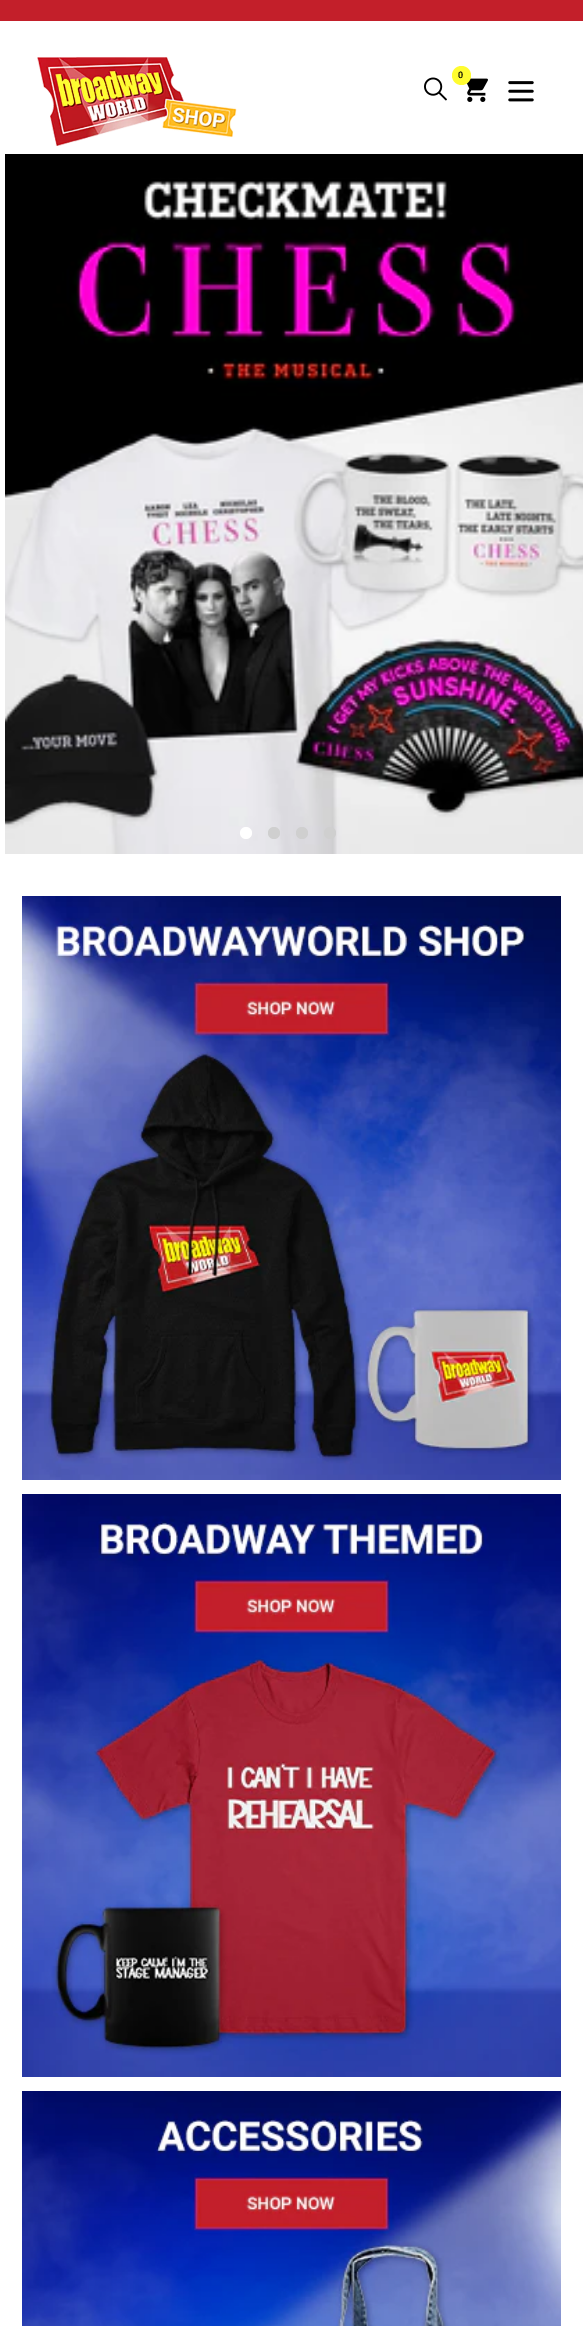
%!PS
<< /PageSize [583 2326] >> setpagedevice
/f/fill load def
/C { dup -16 bitshift 255 div exch dup -8 bitshift 255 and 255 div exch 255 and 255 div setrgbcolor } def
/F { [ exch dup neg 0 0 3 -1 roll 0 0 ] selectfont } def
/T { moveto show } def
/R { rectfill } def
/O { newpath 0 360 arc closepath } def
/I { 5 dict begin { /h /w /y /x /name } { exch def } forall
  gsave x y translate w h scale
  w h 8 [w 0 0 h 0 0] name (r) file false 3 colorimage grestore end } def
0 2326 translate 1 -1 scale
4 setmiterlimit
16#FFFFFF C
0 0 583 2326 R
16#C31F2A C
0 0 583 21 R
(1.rgb) 37 57 200 89 I
(2.rgb) 466 78 22 24 I
16#FFFC30 C
461.5 75.5 9.5 O f
/Roboto-Medium 9 F
16#000000 C
(0) 458 78 T
(3.rgb) 424 77 23 24 I
(4.rgb) 508 81 26 21 I
(5.rgb) 5 154 578 700 I
16#FFFFFF C
246 833 6 O f
16#CFCFCF C
274 833 6 O f
302 833 6 O f
330 833 6 O f
(6.rgb) 22 896 539 584 I
(7.rgb) 22 1494 539 583 I
(8.rgb) 22 2091 539 235 I
showpage
